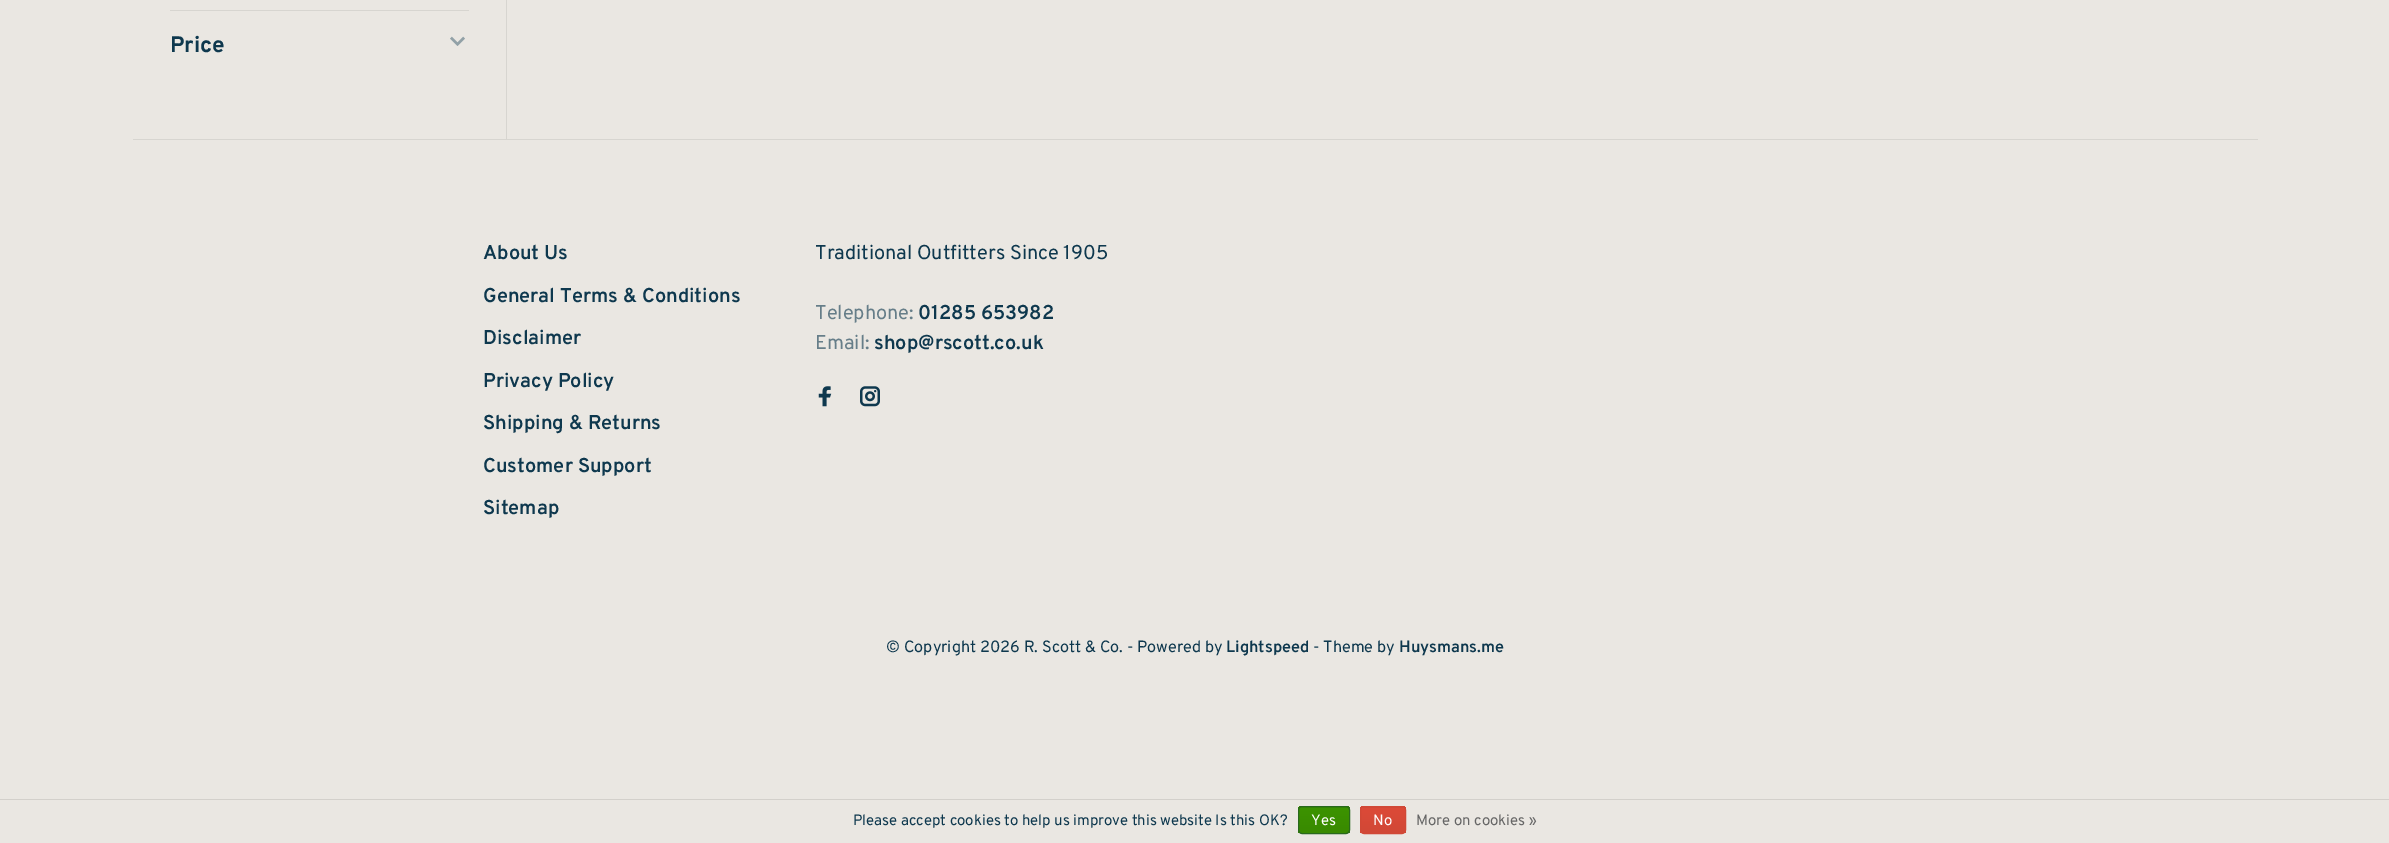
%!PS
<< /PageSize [2389 843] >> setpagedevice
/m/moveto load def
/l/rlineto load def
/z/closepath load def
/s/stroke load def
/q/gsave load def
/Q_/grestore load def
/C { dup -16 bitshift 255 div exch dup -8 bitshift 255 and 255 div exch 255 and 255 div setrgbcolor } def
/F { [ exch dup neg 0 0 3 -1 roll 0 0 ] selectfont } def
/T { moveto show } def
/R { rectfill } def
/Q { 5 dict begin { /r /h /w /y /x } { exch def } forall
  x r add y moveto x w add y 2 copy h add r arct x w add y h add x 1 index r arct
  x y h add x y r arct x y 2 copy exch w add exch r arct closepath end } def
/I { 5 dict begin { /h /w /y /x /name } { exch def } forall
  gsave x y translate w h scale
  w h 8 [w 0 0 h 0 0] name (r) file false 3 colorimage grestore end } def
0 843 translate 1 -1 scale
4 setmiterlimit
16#EAE7E2 C
0 0 2389 843 R
16#D7D5D0 C
133 139 2125 1 R
506 0 1 139 R
170 10 299 1 R
/Overpass-Bold 22.5 F
16#0E384E C
(Price) 170 52 T
(1.rgb) 450 36 15 10 I
/Overpass-SemiBold 20 F
(About Us) 483 259 T
(General Terms & Conditions) 483 302 T
(Disclaimer) 483 344 T
(Privacy Policy) 483 387 T
(Shipping & Returns) 483 429 T
(Customer Support) 483 472 T
(Sitemap) 483 514 T
/Overpass-Regular 20 F
(Traditional Outfitters Since 1905) 815 259 T
16#667E89 C
(Telephone:) 815 319 T
/Overpass-SemiBold 20 F
16#0E384E C
(01285 653982) 918 319 T
/Overpass-Regular 20 F
16#667E89 C
(Email:) 815 349 T
/Overpass-SemiBold 20 F
16#0E384E C
(shop@rscott.co.uk) 874 349 T
(2.rgb) 818 386 14 21 I
(3.rgb) 860 386 20 21 I
/Overpass-Regular 16.25 F
(© Copyright 2026 R. Scott & Co. - Powered by) 886 652 T
/Overpass-SemiBold 16.25 F
(Lightspeed) 1226 652 T
/Overpass-Regular 16.25 F
(- Theme by) 1313 652 T
/Overpass-SemiBold 16.25 F
(Huysmans.me) 1399 652 T
16#D3D0CB C
0 799 2389 1 R
/Overpass-Regular 15 F
16#0E384E C
(Please accept cookies to help us improve this website Is this OK?) 853 825 T
q
1298 806 52 28 4 Q clip newpath
q 1298 806 m 52 0 l 0 2 l -52 0 l z clip newpath
<< /ShadingType 2 /ColorSpace /DeviceRGB /Coords [1324 783 1324 808] /Extend [true true] /Function << /FunctionType 2 /Domain [0 1] /C0 [.235 .576 0] /C1 [.224 .541 0] /N 1 >> >> shfill Q_
q 1298 808 m 52 0 l 0 25 l -52 0 l z clip newpath
<< /ShadingType 2 /ColorSpace /DeviceRGB /Coords [1324 808 1324 833] /Extend [true true] /Function << /FunctionType 2 /Domain [0 1] /C0 [.235 .576 0] /C1 [.224 .541 0] /N 1 >> >> shfill Q_
Q_
16#29691D C
1298.5 806.5 51 27 3.5 Q s
16#FFFFFF C
(Yes) 1311 825 T
q
1360 806 46 28 4 Q clip newpath
q 1360 806 m 46 0 l 0 2 l -46 0 l z clip newpath
<< /ShadingType 2 /ColorSpace /DeviceRGB /Coords [1383 783 1383 808] /Extend [true true] /Function << /FunctionType 2 /Domain [0 1] /C0 [.863 .29 .22] /C1 [.82 .282 .212] /N 1 >> >> shfill Q_
q 1360 808 m 46 0 l 0 25 l -46 0 l z clip newpath
<< /ShadingType 2 /ColorSpace /DeviceRGB /Coords [1383 808 1383 833] /Extend [true true] /Function << /FunctionType 2 /Domain [0 1] /C0 [.863 .29 .22] /C1 [.82 .282 .212] /N 1 >> >> shfill Q_
Q_
16#D14836 C
1360.5 806.5 45 27 3.5 Q s
16#FFFFFF C
(No) 1373 825 T
16#666666 C
(More on cookies ») 1416 825 T
showpage
